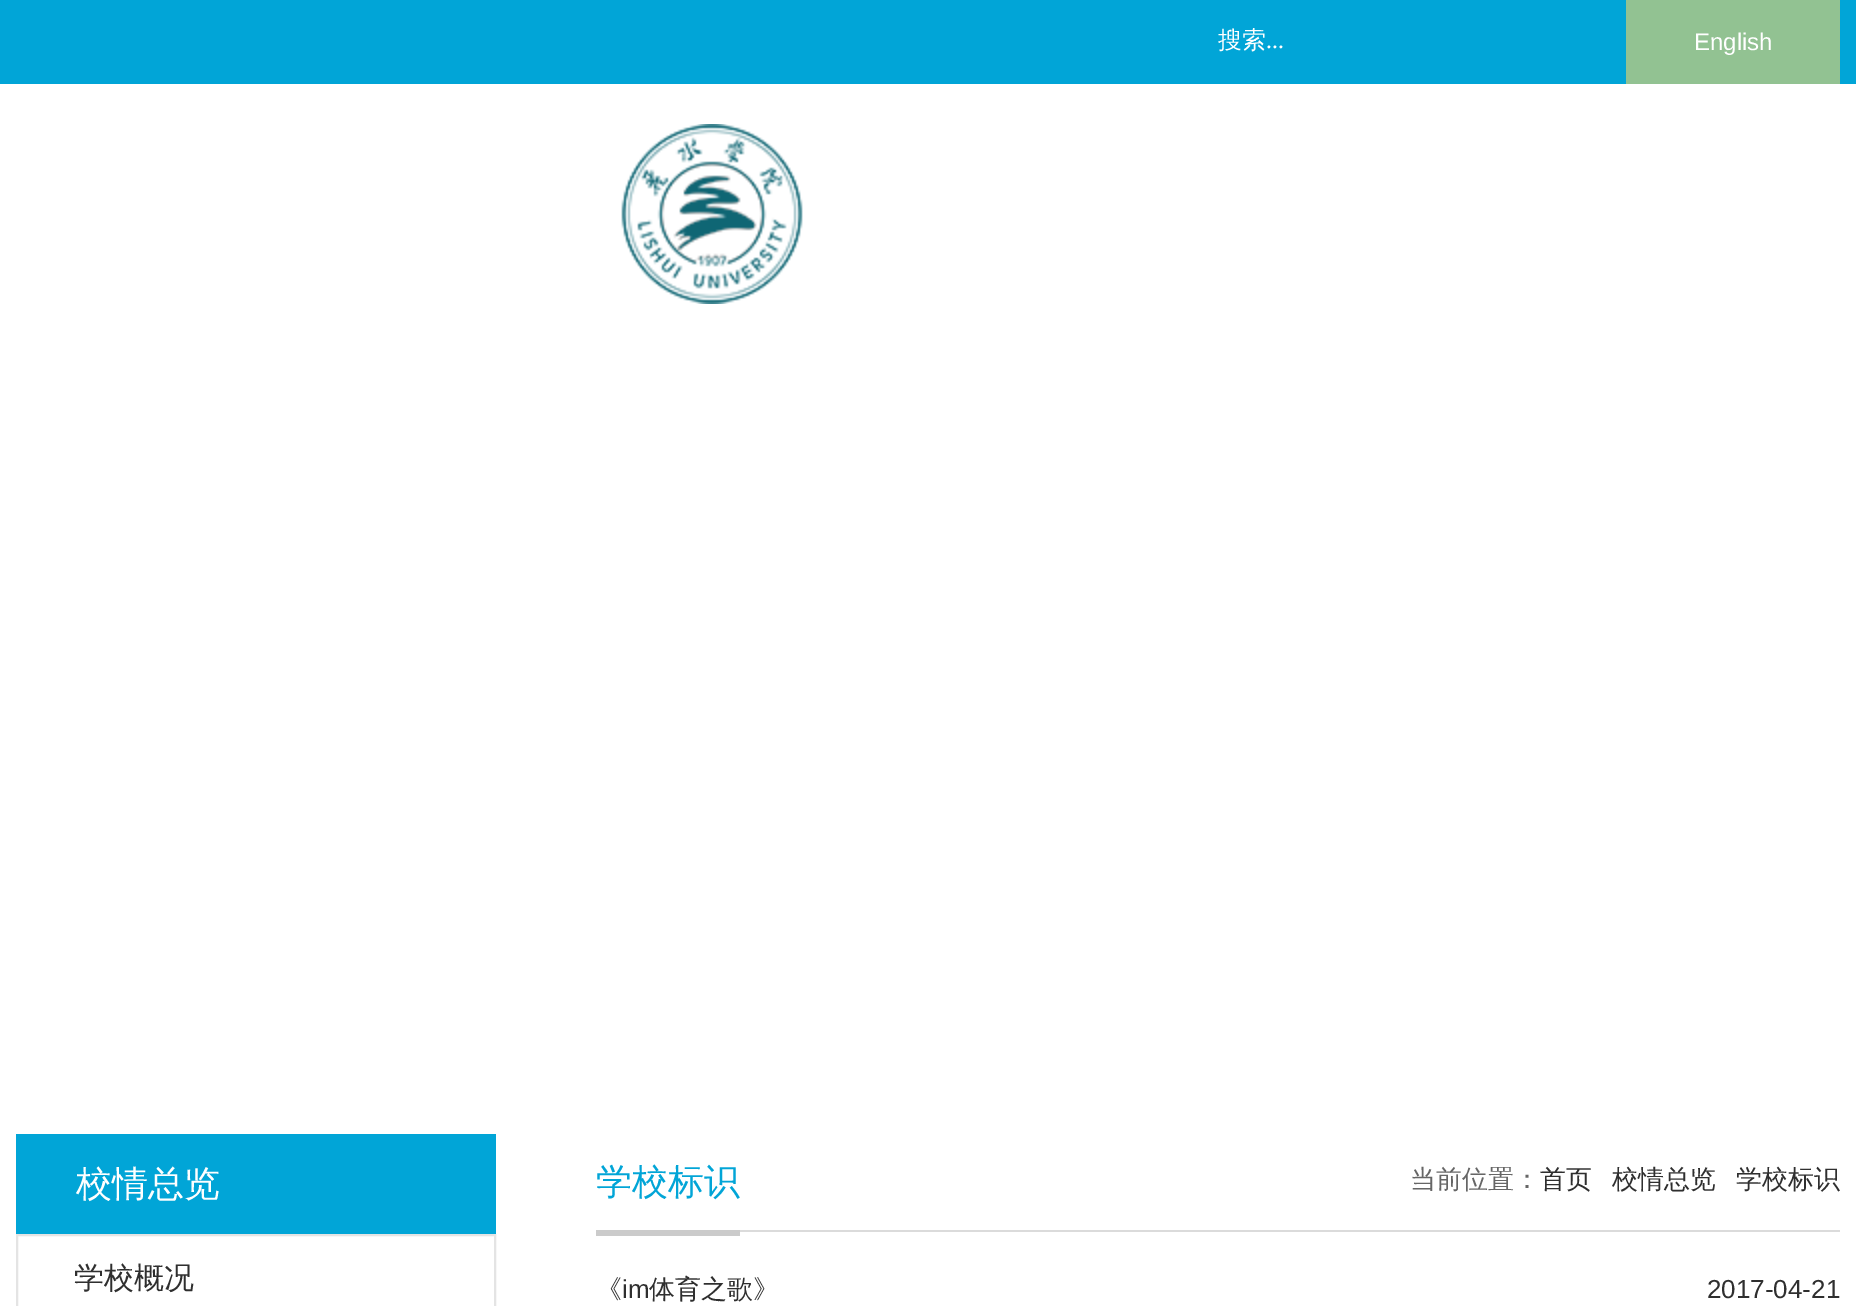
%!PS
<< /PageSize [1856 1306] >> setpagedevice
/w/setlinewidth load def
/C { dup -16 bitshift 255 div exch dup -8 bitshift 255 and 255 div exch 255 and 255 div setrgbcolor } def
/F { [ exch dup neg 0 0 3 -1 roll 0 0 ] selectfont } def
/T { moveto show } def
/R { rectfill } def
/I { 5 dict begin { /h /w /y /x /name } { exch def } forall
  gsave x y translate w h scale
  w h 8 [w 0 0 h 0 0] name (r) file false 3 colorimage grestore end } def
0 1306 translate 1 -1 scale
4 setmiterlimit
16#FFFFFF C
0 0 1856 1306 R
16#01A5D7 C
0 0 1856 84 R
/WenQuanYiZenHei-Medium 24 F
16#FFFFFF C
(搜索) 1218 48 T
/LiberationSerif-Regular 24 F
(...) 1266 48 T
16#92C292 C
1626 0 214 84 R
/LiberationSans-Regular 24 F
16#FFFFFF C
(English) 1694 50 T
(1.rgb) 621 124 182 180 I
16#01A5D7 C
16 1134 480 100 R
/WenQuanYiZenHei-Medium 36 F
16#FFFFFF C
(校情总览) 76 1196 T
16#E4E4E4 C
2 w
17 1235 478 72 rectstroke
/WenQuanYiZenHei-Medium 30 F
16#2F2F2F C
(学校概况) 74 1288 T
16#DBDBDB C
740 1230 1100 2 R
16#CBCBCB C
596 1230 144 6 R
/WenQuanYiZenHei-Medium 36 F
16#01A5D7 C
(学校标识) 596 1194 T
/WenQuanYiZenHei-Medium 26 F
16#666666 C
(当前位置：) 1410 1188 T
16#2F2F2F C
(首页) 1540 1188 T
(校情总览) 1612 1188 T
(学校标识) 1736 1188 T
(《) 596 1298 T
/LiberationSans-Regular 26 F
(im) 622 1298 T
/WenQuanYiZenHei-Medium 26 F
(体育之歌》) 649 1298 T
/LiberationSans-Regular 26 F
(2017-04-21) 1707 1298 T
showpage
